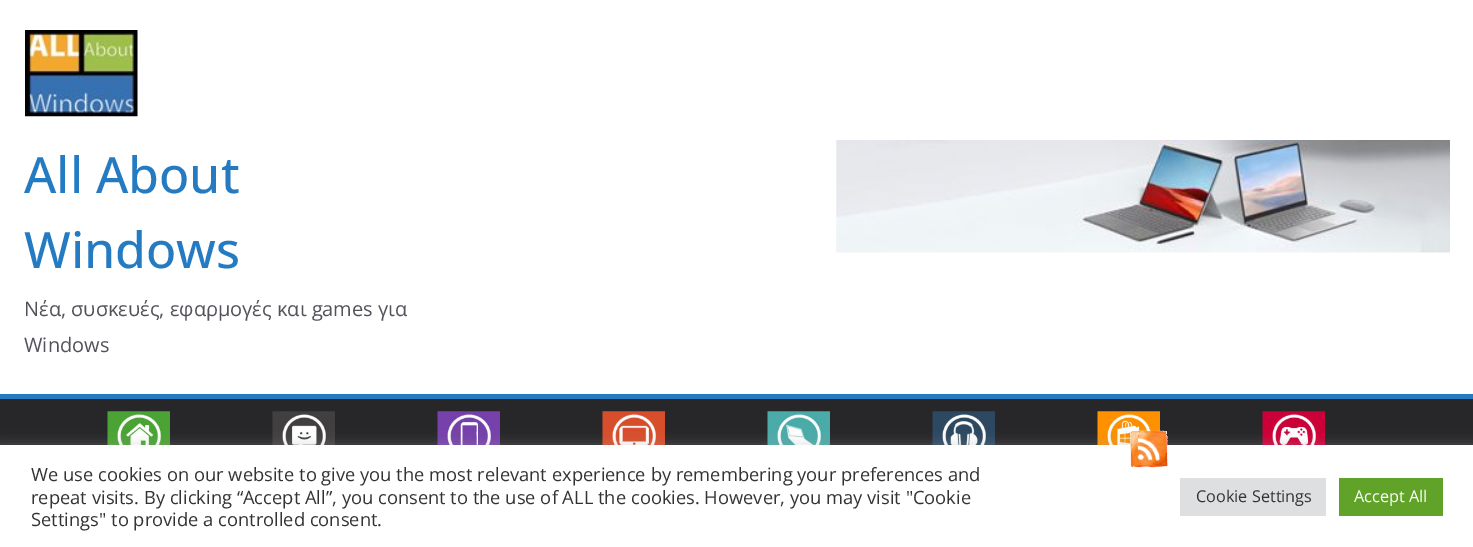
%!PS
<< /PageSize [1473 547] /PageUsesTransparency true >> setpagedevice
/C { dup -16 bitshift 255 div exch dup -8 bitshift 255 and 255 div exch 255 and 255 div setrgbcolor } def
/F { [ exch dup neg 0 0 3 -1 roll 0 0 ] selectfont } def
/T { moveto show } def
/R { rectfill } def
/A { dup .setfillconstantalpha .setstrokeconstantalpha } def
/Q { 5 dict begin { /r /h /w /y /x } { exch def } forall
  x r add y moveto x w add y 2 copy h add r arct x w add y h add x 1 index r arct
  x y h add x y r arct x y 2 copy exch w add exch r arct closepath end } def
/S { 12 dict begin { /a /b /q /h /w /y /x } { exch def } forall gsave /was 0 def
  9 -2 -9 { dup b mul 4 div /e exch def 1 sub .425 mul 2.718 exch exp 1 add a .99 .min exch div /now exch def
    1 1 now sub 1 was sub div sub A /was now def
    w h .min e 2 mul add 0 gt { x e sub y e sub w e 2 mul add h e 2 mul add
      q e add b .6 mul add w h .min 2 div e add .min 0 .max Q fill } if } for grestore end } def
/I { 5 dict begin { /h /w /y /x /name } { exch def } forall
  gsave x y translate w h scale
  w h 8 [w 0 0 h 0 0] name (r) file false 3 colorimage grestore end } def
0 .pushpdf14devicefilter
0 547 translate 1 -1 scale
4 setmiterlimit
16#FFFFFF C
0 0 1473 547 R
(1.rgb) 25 30 113 87 I
/OpenSans-Medium 50 F
16#257BC1 C
(All About) 24 193 T
(Windows) 24 268 T
/OpenSans-Regular 20 F
16#52525B C
(Νέα, συσκευές, εφαρμογές και games για) 24 316 T
(Windows) 24 352 T
(2.rgb) 836 140 614 113 I
16#27272A C
0 399 1473 46 R
16#257BC1 C
0 394 1473 5 R
(3.rgb) 107 411 63 34 I
(4.rgb) 272 411 63 34 I
(5.rgb) 437 411 63 34 I
(6.rgb) 602 411 63 34 I
(7.rgb) 767 411 63 34 I
(8.rgb) 932 411 63 34 I
(9.rgb) 1097 411 63 34 I
(10.rgb) 1262 411 63 34 I
16#ACABAB C
0 444 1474 102 0 6 .3 S
16#FFFFFF C
0 445 1473 102 R
(11.rgb) 1130 430 38 38 I
/OpenSans-Regular 18.33 F
16#333333 C
(We use cookies on our website to give you the most relevant experience by remembering your preferences and) 31 481 T
(repeat visits. By clicking “Accept All”, you consent to the use of ALL the cookies. However, you may visit "Cookie) 31 504 T
(Settings" to provide a controlled consent.) 31 526 T
16#DEDFE0 C
1180 478 146 38 R
/OpenSans-Regular 16.25 F
16#333333 C
(Cookie Settings) 1196 502 T
16#61A229 C
1339 478 104 38 R
16#FFFFFF C
(Accept All) 1354 502 T
.poppdf14devicefilter showpage
